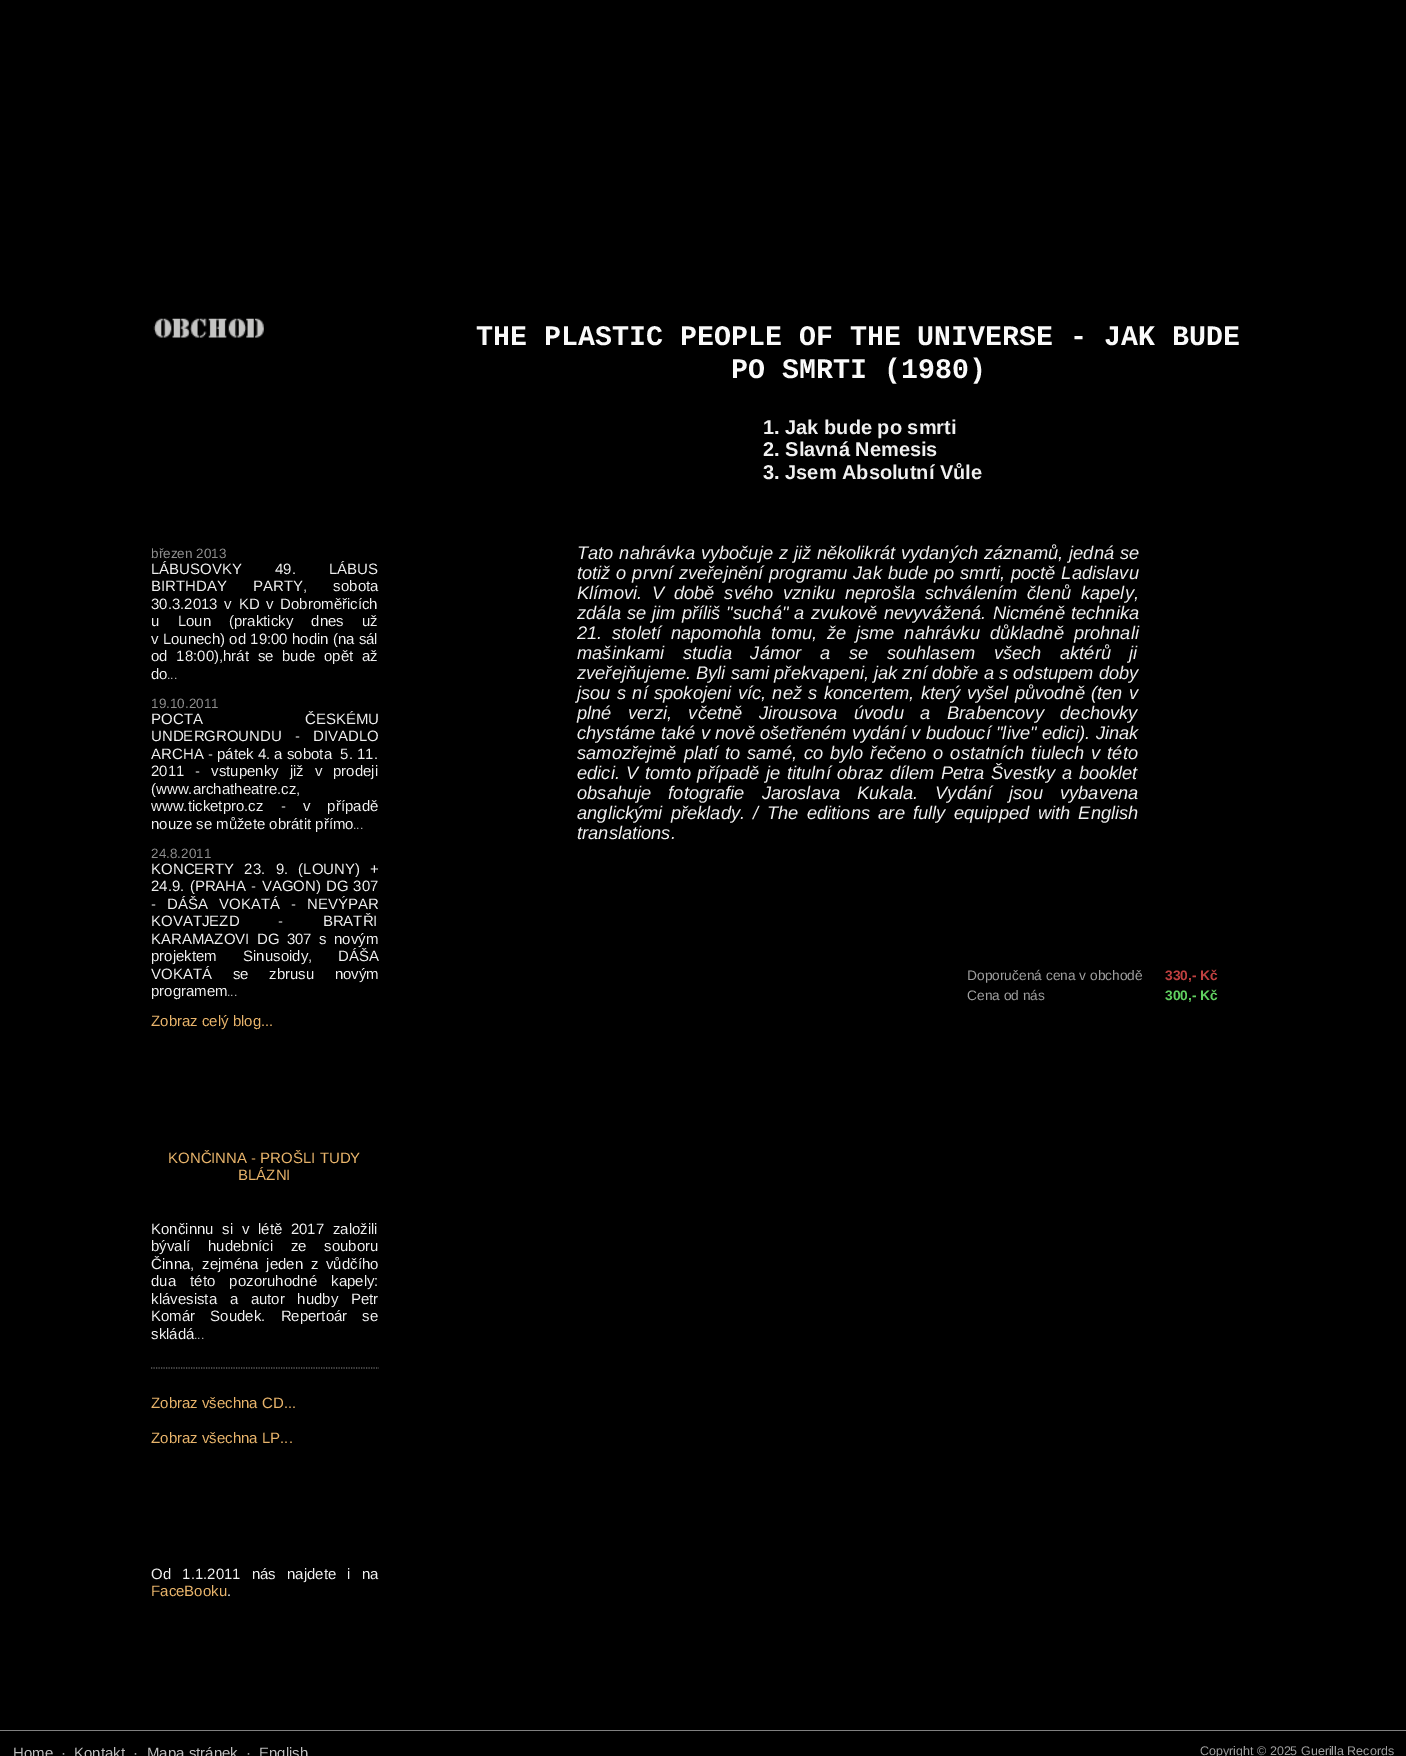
%!PS
<< /PageSize [1406 1756] >> setpagedevice
/m/moveto load def
/l/rlineto load def
/s/stroke load def
/w/setlinewidth load def
/C { dup -16 bitshift 255 div exch dup -8 bitshift 255 and 255 div exch 255 and 255 div setrgbcolor } def
/F { [ exch dup neg 0 0 3 -1 roll 0 0 ] selectfont } def
/T { moveto show } def
/R { rectfill } def
/I { 5 dict begin { /h /w /y /x /name } { exch def } forall
  gsave x y translate w h scale
  w h 8 [w 0 0 h 0 0] name (r) file false 3 colorimage grestore end } def
0 1756 translate 1 -1 scale
4 setmiterlimit
16#000000 C
0 0 1406 1756 R
(1.rgb) 153 318 111 20 I
/LiberationSans-Regular 13.5 F
16#909090 C
(březen 2013) 151 558 T
/LiberationSans-Regular 15 F
16#F0F0F0 C
151 574 m 29 0 32 (LÁBUSOVKY 49. LÁBUS) widthshow
151 591 m 22 0 32 (BIRTHDAY PARTY, sobota) widthshow
151 609 m 2.5 0 32 (30.3.2013 v KD v Dobroměřicích) widthshow
151 626 m 14 0 32 (u Loun \(prakticky dnes už) widthshow
(v Lounech\) od 19:00 hodin \(na sál) 151 644 T
151 661 m 4.5 0 32 (od 18:00\),hrát se bude opět až) widthshow
(do) 151 679 T
/LiberationSans-Regular 12.5 F
(...) 167 679 T
/LiberationSans-Regular 13.5 F
16#909090 C
(19.10.2011) 151 708 T
/LiberationSans-Regular 15 F
16#F0F0F0 C
151 724 m 98 0 32 (POCTA ČESKÉMU) widthshow
151 741 m 9 0 32 (UNDERGROUNDU - DIVADLO) widthshow
(ARCHA - pátek 4. a sobota  5. 11.) 151 759 T
151 776 m 6.75 0 32 (2011 - vstupenky již v prodeji) widthshow
(\(www.archatheatre.cz,) 151 794 T
151 811 m 13 0 32 (www.ticketpro.cz - v případě) widthshow
(nouze se můžete obrátit přímo) 151 829 T
/LiberationSans-Regular 12.5 F
(...) 353 829 T
/LiberationSans-Regular 13.5 F
16#909090 C
(24.8.2011) 151 858 T
/LiberationSans-Regular 15 F
16#F0F0F0 C
151 874 m 6 0 32 (KONCERTY 23. 9. \(LOUNY\) +) widthshow
151 891 m 1 0 32 (24.9. \(PRAHA - VAGON\) DG 307) widthshow
151 909 m 7 0 32 (- DÁŠA VOKATÁ - NEVÝPAR) widthshow
151 926 m 35 0 32 (KOVATJEZD - BRATŘI) widthshow
151 944 m 3.25 0 32 (KARAMAZOVI DG 307 s novým) widthshow
151 961 m 22 0 32 (projektem Sinusoidy, DÁŠA) widthshow
151 979 m 16.5 0 32 (VOKATÁ se zbrusu novým) widthshow
(programem) 151 996 T
/LiberationSans-Regular 12.5 F
(...) 227 996 T
/LiberationSans-Regular 15 F
16#E8B46B C
(Zobraz celý blog...) 151 1026 T
16#606060 C
1.2 w
[1.25 1.25] 0 setdash
151 1368 m 228 0 l s
16#E8B46B C
(KONČINNA - PROŠLI TUDY) 168 1163 T
(BLÁZNI) 238 1180 T
16#F0F0F0 C
151 1234 m 4.5 0 32 (Končinnu si v létě 2017 založili) widthshow
151 1251 m 13.5 0 32 (bývalí hudebníci ze souboru) widthshow
151 1269 m 3.5 0 32 (Činna, zejména jeden z vůdčího) widthshow
151 1286 m 10 0 32 (dua této pozoruhodné kapely:) widthshow
151 1304 m 8.5 0 32 (klávesista a autor hudby Petr) widthshow
151 1321 m 11 0 32 (Komár Soudek. Repertoár se) widthshow
(skládá) 151 1339 T
/LiberationSans-Regular 12.5 F
(...) 194 1339 T
/LiberationSans-Regular 15 F
16#E8B46B C
(Zobraz všechna CD...) 151 1408 T
(Zobraz všechna LP...) 151 1443 T
16#F0F0F0 C
151 1579 m 7 0 32 (Od 1.1.2011 nás najdete i na) widthshow
16#E8B46B C
(FaceBooku) 151 1596 T
16#F0F0F0 C
(.) 227 1596 T
/LiberationMono-Bold 28.3 F
16#FAFAFA C
(THE PLASTIC PEOPLE OF THE UNIVERSE - JAK BUDE) 476 345 T
(PO SMRTI \(1980\)) 731 378 T
/LiberationSans-Bold 20 F
16#F0F0F0 C
(1. Jak bude po smrti) 763 434 T
(2. Slavná Nemesis) 763 456 T
(3. Jsem Absolutní Vůle) 763 479 T
/LiberationSans-Italic 18.3 F
577 559 m .75 0 32 (Tato nahrávka vybočuje z již několikrát vydaných záznamů, jedná se) widthshow
577 579 m .75 0 32 (totiž o první zveřejnění programu Jak bude po smrti, poctě Ladislavu) widthshow
577 599 m 4.75 0 32 (Klímovi. V době svého vzniku neprošla schválením členů kapely,) widthshow
577 619 m 1 0 32 (zdála se jim příliš "suchá" a zvukově nevyvážená. Nicméně technika) widthshow
577 639 m 4.75 0 32 (21. století napomohla tomu, že jsme nahrávku důkladně prohnali) widthshow
577 659 m 13.5 0 32 (mašinkami studia Jámor a se souhlasem všech aktérů ji) widthshow
(zveřejňujeme. Byli sami překvapeni, jak zní dobře a s odstupem doby) 577 679 T
577 699 m 1.25 0 32 (jsou s ní spokojeni víc, než s koncertem, který vyšel původně \(ten v) widthshow
577 719 m 11.5 0 32 (plné verzi, včetně Jirousova úvodu a Brabencovy dechovky) widthshow
577 739 m .25 0 32 (chystáme také v nově ošetřeném vydání v budoucí "live" edici\). Jinak) widthshow
577 759 m 1.8 0 32 (samozřejmě platí to samé, co bylo řečeno o ostatních tiulech v této) widthshow
577 779 m 1.5 0 32 (edici. V tomto případě je titulní obraz dílem Petra Švestky a booklet) widthshow
577 799 m 12 0 32 (obsahuje fotografie Jaroslava Kukala. Vydání jsou vybavena) widthshow
577 819 m 3.25 0 32 (anglickými překlady. /) widthshow
767 819 m 3.25 0 32 (The editions are fully equipped with English) widthshow
(translations.) 577 839 T
/LiberationSans-Regular 13.75 F
16#A0A0A0 C
(Doporučená cena v obchodě) 967 980 T
/LiberationSans-Bold 13.75 F
16#C04040 C
(330,- Kč) 1165 980 T
/LiberationSans-Regular 13.75 F
16#A0A0A0 C
(Cena od nás) 967 1000 T
/LiberationSans-Bold 13.75 F
16#60D060 C
(300,- Kč) 1165 1000 T
16#808080 C
0 1730 1406 1 R
/LiberationSans-Regular 15 F
16#C0C0C0 C
(Home) 13 1758 T
16#A0A0A0 C
(·) 61 1758 T
16#C0C0C0 C
(Kontakt) 74 1758 T
16#A0A0A0 C
(·) 133 1758 T
16#C0C0C0 C
(Mapa stránek) 147 1758 T
16#A0A0A0 C
(·) 246 1758 T
16#C0C0C0 C
(English) 259 1758 T
/LiberationSans-Regular 12.5 F
16#A0A0A0 C
(Copyright © 2025 Guerilla Records) 1200 1755 T
showpage
